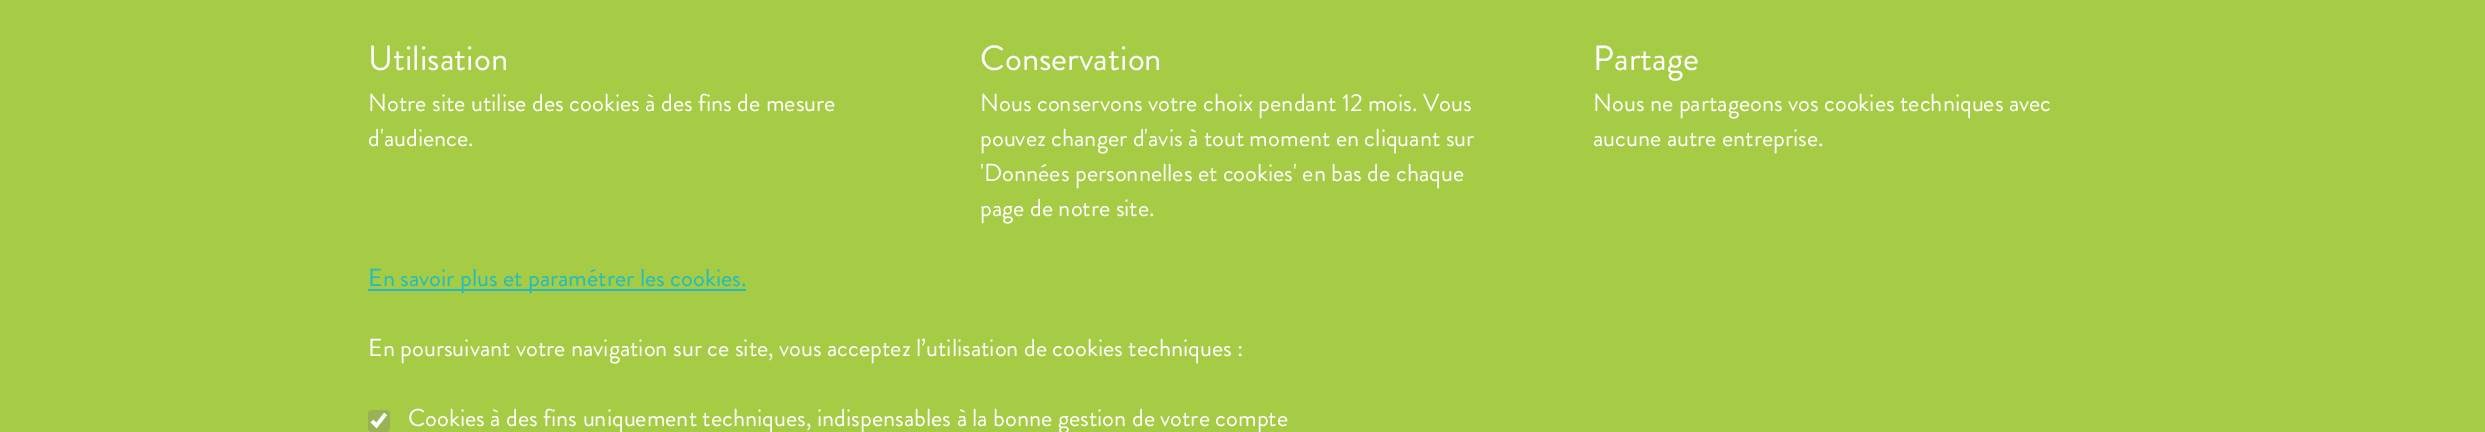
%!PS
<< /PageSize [2485 432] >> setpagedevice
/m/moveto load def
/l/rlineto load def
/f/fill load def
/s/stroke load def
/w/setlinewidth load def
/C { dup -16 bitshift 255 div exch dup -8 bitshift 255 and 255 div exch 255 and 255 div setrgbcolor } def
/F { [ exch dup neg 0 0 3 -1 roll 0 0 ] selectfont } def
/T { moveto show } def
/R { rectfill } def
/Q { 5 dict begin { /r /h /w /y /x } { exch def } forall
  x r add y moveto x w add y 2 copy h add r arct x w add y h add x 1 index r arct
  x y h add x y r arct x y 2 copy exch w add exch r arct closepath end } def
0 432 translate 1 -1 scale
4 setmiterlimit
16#A6CC45 C
0 0 2485 432 R
/BrandonGrotesque-Regular 35 F
16#FFFFFF C
(Utilisation) 368 70 T
/BrandonGrotesque-Regular 24.5 F
(Notre site utilise des cookies à des fins de mesure) 368 111 T
(d'audience.) 368 146 T
/BrandonGrotesque-Regular 35 F
(Conservation) 980 70 T
/BrandonGrotesque-Regular 24.5 F
(Nous conservons votre choix pendant 12 mois. Vous) 980 111 T
(pouvez changer d'avis à tout moment en cliquant sur) 980 146 T
('Données personnelles et cookies' en bas de chaque) 980 181 T
(page de notre site.) 980 216 T
/BrandonGrotesque-Regular 35 F
(Partage) 1593 70 T
/BrandonGrotesque-Regular 24.5 F
(Nous ne partageons vos cookies techniques avec) 1593 111 T
(aucune autre entreprise.) 1593 146 T
16#20BCC1 C
368 289 378 2 R
(En savoir plus et paramétrer les cookies.) 368 286 T
16#FFFFFF C
(En poursuivant votre navigation sur ce site, vous acceptez l’utilisation de cookies techniques :) 368 356 T
16#98B254 C
368 410 22 22 4 Q f
16#FFFFFF C
3.6 w
372 421 m 4.5 4.5 l 9 -11.5 l s
(Cookies à des fins uniquement techniques, indispensables à la bonne gestion de votre compte) 408 426 T
showpage
